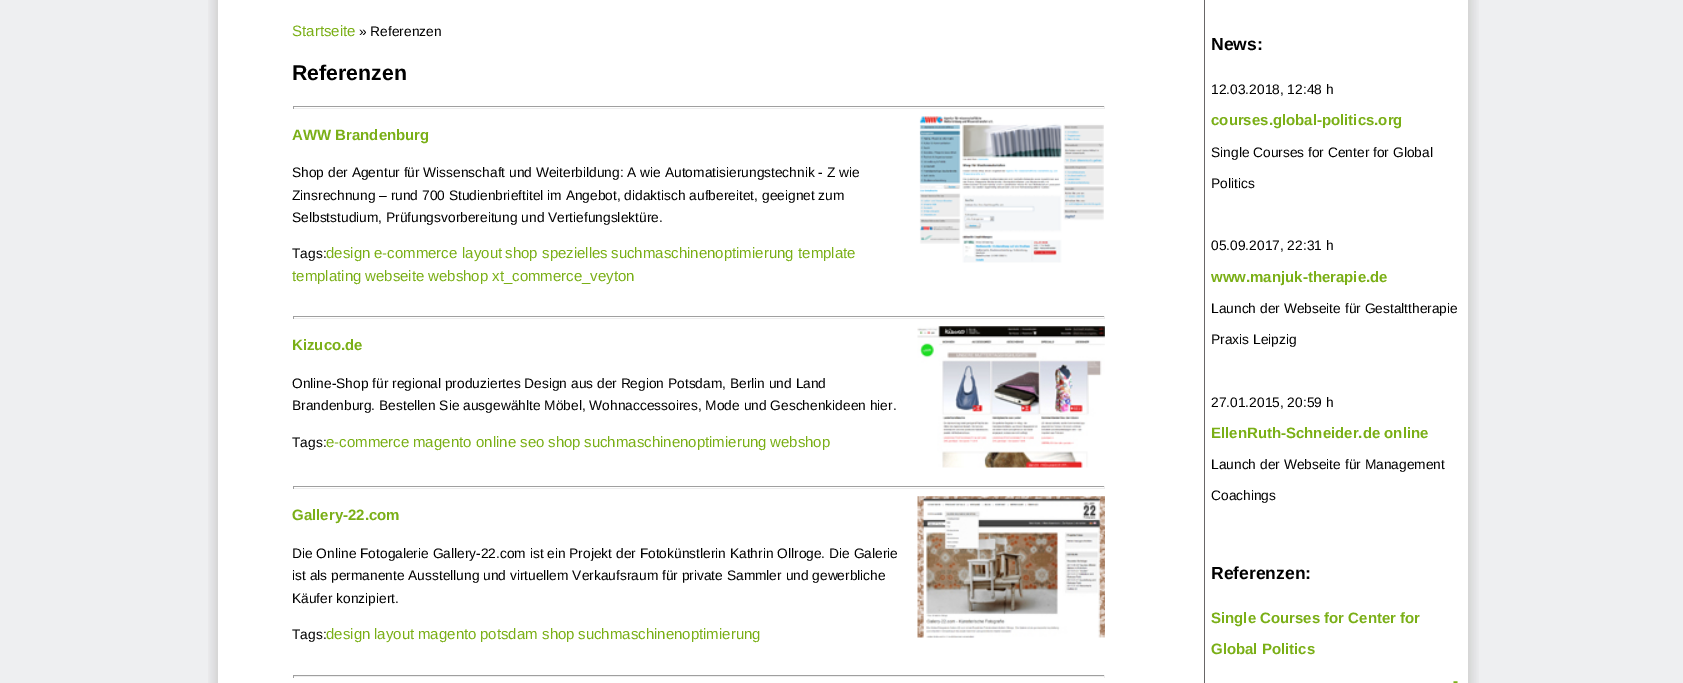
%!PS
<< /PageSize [1683 683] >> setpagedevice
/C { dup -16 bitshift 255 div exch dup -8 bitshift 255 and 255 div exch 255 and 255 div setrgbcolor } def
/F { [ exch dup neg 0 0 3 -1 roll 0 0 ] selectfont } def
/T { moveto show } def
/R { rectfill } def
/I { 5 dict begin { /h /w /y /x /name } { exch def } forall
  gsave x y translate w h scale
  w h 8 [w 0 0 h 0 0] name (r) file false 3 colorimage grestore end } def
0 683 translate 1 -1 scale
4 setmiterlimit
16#EEEFF1 C
0 0 1683 683 R
(1.rgb) 208 0 1271 683 I
16#FFFFFF C
218 0 1250 683 R
/LiberationSans-Regular 15 F
16#7AAF16 C
(Startseite) 292 36 T
/LiberationSans-Regular 13.75 F
16#000000 C
(» Referenzen) 359 36 T
/LiberationSans-Bold 21.25 F
(Referenzen) 292 80 T
16#9F9F9F C
293 106 812 1 R
16#EEEEEE C
1104 106 1 3 R
293 108 812 1 R
16#9F9F9F C
293 106 1 3 R
/LiberationSans-Bold 15 F
16#7AAF16 C
(AWW Brandenburg) 292 140 T
/LiberationSans-Regular 13.75 F
16#000000 C
(Shop der Agentur für Wissenschaft und Weiterbildung: A wie Automatisierungstechnik - Z wie) 292 177 T
(Zinsrechnung – rund 700 Studienbrieftitel im Angebot, didaktisch aufbereitet, geeignet zum) 292 200 T
(Selbststudium, Prüfungsvorbereitung und Vertiefungslektüre.) 292 222 T
(Tags:) 292 258 T
/LiberationSans-Regular 15 F
16#7AAF16 C
(design) 326 258 T
(e-commerce) 374 258 T
(layout) 462 258 T
(shop) 505 258 T
(spezielles) 542 258 T
(suchmaschinenoptimierung) 611 258 T
(template) 798 258 T
(templating) 292 281 T
(webseite) 365 281 T
(webshop) 428 281 T
(xt_commerce_veyton) 492 281 T
(2.rgb) 919 116 185 147 I
16#9F9F9F C
293 316 812 1 R
16#EEEEEE C
1104 316 1 3 R
293 318 812 1 R
16#9F9F9F C
293 316 1 3 R
/LiberationSans-Bold 15 F
16#7AAF16 C
(Kizuco.de) 292 350 T
/LiberationSans-Regular 13.75 F
16#000000 C
(Online-Shop für regional produziertes Design aus der Region Potsdam, Berlin und Land) 292 388 T
(Brandenburg. Bestellen Sie ausgewählte Möbel, Wohnaccessoires, Mode und Geschenkideen hier.) 292 410 T
(Tags:) 292 447 T
/LiberationSans-Regular 15 F
16#7AAF16 C
(e-commerce) 326 447 T
(magento) 413 447 T
(online) 476 447 T
(seo) 520 447 T
(shop) 548 447 T
(suchmaschinenoptimierung) 584 447 T
(webshop) 770 447 T
(3.rgb) 917 326 188 142 I
16#9F9F9F C
293 486 812 1 R
16#EEEEEE C
1104 486 1 3 R
293 488 812 1 R
16#9F9F9F C
293 486 1 3 R
/LiberationSans-Bold 15 F
16#7AAF16 C
(Gallery-22.com) 292 520 T
/LiberationSans-Regular 13.75 F
16#000000 C
(Die Online Fotogalerie Gallery-22.com ist ein Projekt der Fotokünstlerin Kathrin Ollroge. Die Galerie) 292 558 T
(ist als permanente Ausstellung und virtuellem Verkaufsraum für private Sammler und gewerbliche) 292 580 T
(Käufer konzipiert.) 292 603 T
(Tags:) 292 639 T
/LiberationSans-Regular 15 F
16#7AAF16 C
(design) 326 639 T
(layout) 374 639 T
(magento) 418 639 T
(potsdam) 480 639 T
(shop) 542 639 T
(suchmaschinenoptimierung) 578 639 T
(4.rgb) 917 496 188 142 I
16#9F9F9F C
293 675 812 1 R
16#EEEEEE C
1104 675 1 3 R
293 676 812 1 R
16#9F9F9F C
293 675 1 3 R
16#686667 C
1204 0 1 683 R
/LiberationSans-Bold 17.5 F
16#000000 C
(News:) 1211 50 T
/LiberationSans-Regular 13.75 F
(12.03.2018, 12:48 h) 1211 94 T
/LiberationSans-Bold 15 F
16#7AAF16 C
(courses.global-politics.org) 1211 125 T
/LiberationSans-Regular 13.75 F
16#000000 C
(Single Courses for Center for Global) 1211 157 T
(Politics) 1211 188 T
(05.09.2017, 22:31 h) 1211 250 T
/LiberationSans-Bold 15 F
16#7AAF16 C
(www.manjuk-therapie.de) 1211 282 T
/LiberationSans-Regular 13.75 F
16#000000 C
(Launch der Webseite für Gestalttherapie) 1211 313 T
(Praxis Leipzig) 1211 344 T
(27.01.2015, 20:59 h) 1211 407 T
/LiberationSans-Bold 15 F
16#7AAF16 C
(EllenRuth-Schneider.de online) 1211 438 T
/LiberationSans-Regular 13.75 F
16#000000 C
(Launch der Webseite für Management) 1211 469 T
(Coachings) 1211 500 T
/LiberationSans-Bold 17.5 F
(Referenzen:) 1211 579 T
/LiberationSans-Bold 15 F
16#7AAF16 C
(Single Courses for Center for) 1211 623 T
(Global Politics) 1211 654 T
(-) 1453 686 T
showpage
